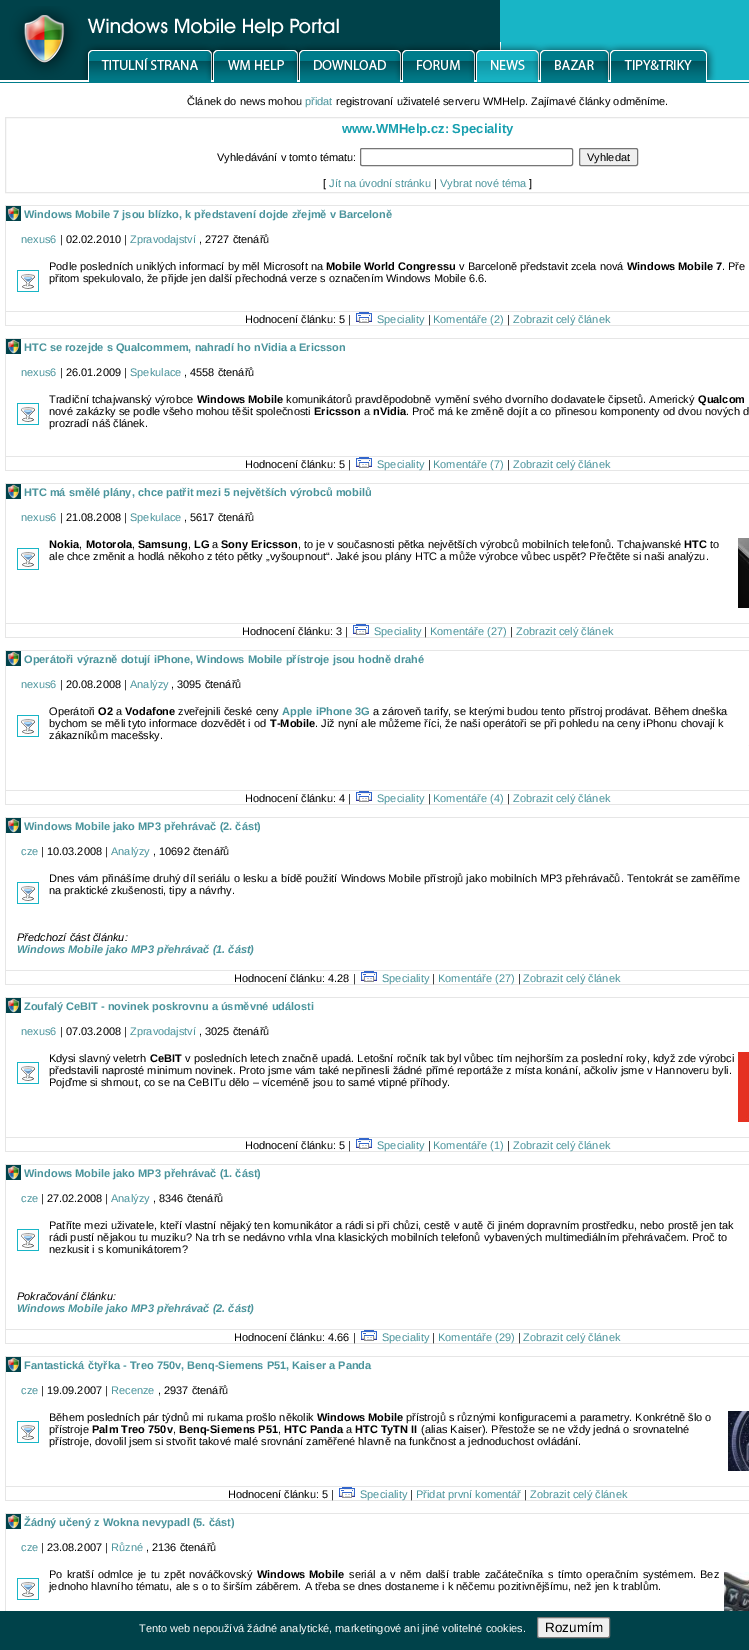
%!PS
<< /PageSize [749 1650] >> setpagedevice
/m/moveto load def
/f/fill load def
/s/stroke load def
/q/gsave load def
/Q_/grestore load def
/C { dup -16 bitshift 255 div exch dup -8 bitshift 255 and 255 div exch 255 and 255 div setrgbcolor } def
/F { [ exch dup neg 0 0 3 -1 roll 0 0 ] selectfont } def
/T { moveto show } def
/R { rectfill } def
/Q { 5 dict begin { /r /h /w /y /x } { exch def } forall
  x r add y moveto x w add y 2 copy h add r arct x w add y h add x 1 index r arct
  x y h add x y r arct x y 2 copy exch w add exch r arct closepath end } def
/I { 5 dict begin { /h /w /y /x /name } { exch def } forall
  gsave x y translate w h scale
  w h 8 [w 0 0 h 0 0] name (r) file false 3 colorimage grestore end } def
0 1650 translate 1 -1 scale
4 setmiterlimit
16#00424A C
0 0 749 1650 R
(1.rgb) 0 6 88 77 I
16#18B5C6 C
500 0 249 42 R
(2.rgb) 88 18 251 19 I
(3.rgb) 88 42 619 8 I
707 42 42 3 R
(4.rgb) 707 45 42 38 I
(5.rgb) 88 50 125 33 I
(6.rgb) 213 50 86 33 I
(7.rgb) 299 50 103 33 I
(8.rgb) 402 50 74 33 I
(9.rgb) 476 50 64 33 I
(10.rgb) 540 50 70 33 I
(11.rgb) 610 50 97 33 I
16#FFFFFF C
0 83 5 1528 R
5 83 744 1430 R
/LiberationSans-Regular 11 F
16#000000 C
(Článek do news mohou) 187 105 T
16#4A949C C
(přidat) 305 105 T
16#000000 C
(registrovaní uživatelé serveru WMHelp. Zajímavé články odměníme.) 336 105 T
16#E6E6E6 C
5.5 117.5 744 75 rectstroke
/LiberationSans-Bold 13 F
16#179FAF C
(www.WMHelp.cz: Speciality) 342 133 T
/LiberationSans-Regular 11 F
16#000000 C
(Vyhledávání v tomto tématu:) 217 161 T
16#767676 C
360.5 148.5 212 17 1.5 Q s
16#EFEFEF C
579.5 148.5 58 17 1.5 Q q f Q_
16#767676 C
s
16#000000 C
(Vyhledat) 587 161 T
([) 323 187 T
16#4A949C C
(Jít na úvodní stránku) 329 187 T
16#000000 C
(|) 434 187 T
16#4A949C C
(Vybrat nové téma) 440 187 T
16#000000 C
(]) 529 187 T
16#E6E6E6 C
5 205 744 121 R
16#FFFFFF C
6 206 743 105 R
(12.rgb) 6 206 15 15 I
/LiberationSans-Bold 11 F
16#4A949C C
(Windows Mobile 7 jsou blízko, k představení dojde zřejmě v Barceloně) 24 218 T
/LiberationSans-Regular 11 F
(nexus6) 21 243 T
16#000000 C
(| 02.02.2010 |) 60 243 T
16#4A949C C
(Zpravodajství) 130 243 T
16#000000 C
(, 2727 čtenářů) 199 243 T
(Podle posledních uniklých informací by měl Microsoft na) 49 270 T
/LiberationSans-Bold 11 F
(Mobile World Congressu) 326 270 T
/LiberationSans-Regular 11 F
(v Barceloně představit zcela nová) 459 270 T
/LiberationSans-Bold 11 F
(Windows Mobile 7) 627 270 T
/LiberationSans-Regular 11 F
(. Pře) 722 270 T
(13.rgb) 17 270 22 22 I
(přitom spekulovalo, že přijde jen další přechodná verze s označením Windows Mobile 6.6.) 49 282 T
16#FFFFFF C
6 312 743 13 R
16#000000 C
(Hodnocení článku: 5 |) 245 323 T
(14.rgb) 356 312 16 11 I
16#4A949C C
(Speciality) 377 323 T
16#000000 C
(|) 428 323 T
16#4A949C C
(Komentáře \(2\)) 433 323 T
16#000000 C
(|) 507 323 T
16#4A949C C
(Zobrazit celý článek) 513 323 T
16#E6E6E6 C
5 338 744 133 R
16#FFFFFF C
6 339 743 117 R
(12.rgb) 6 339 15 15 I
/LiberationSans-Bold 11 F
16#4A949C C
(HTC se rozejde s Qualcommem, nahradí ho nVidia a Ericsson) 24 351 T
/LiberationSans-Regular 11 F
(nexus6) 21 376 T
16#000000 C
(| 26.01.2009 |) 60 376 T
16#4A949C C
(Spekulace) 130 376 T
16#000000 C
(, 4558 čtenářů) 184 376 T
(Tradiční tchajwanský výrobce) 49 403 T
/LiberationSans-Bold 11 F
(Windows Mobile) 197 403 T
/LiberationSans-Regular 11 F
(komunikátorů pravděpodobně vymění svého dvorního dodavatele čipsetů. Americký) 286 403 T
/LiberationSans-Bold 11 F
(Qualcom) 698 403 T
(13.rgb) 17 403 22 22 I
/LiberationSans-Regular 11 F
(nové zakázky se podle všeho mohou těšit společnosti) 49 415 T
/LiberationSans-Bold 11 F
(Ericsson) 314 415 T
/LiberationSans-Regular 11 F
(a) 364 415 T
/LiberationSans-Bold 11 F
(nVidia) 373 415 T
/LiberationSans-Regular 11 F
(. Proč má ke změně dojít a co přinesou komponenty od dvou nových d) 406 415 T
(prozradí náš článek.) 49 427 T
16#FFFFFF C
6 457 743 13 R
16#000000 C
(Hodnocení článku: 5 |) 245 468 T
(14.rgb) 356 457 16 11 I
16#4A949C C
(Speciality) 377 468 T
16#000000 C
(|) 428 468 T
16#4A949C C
(Komentáře \(7\)) 433 468 T
16#000000 C
(|) 507 468 T
16#4A949C C
(Zobrazit celý článek) 513 468 T
16#E6E6E6 C
5 483 744 155 R
16#FFFFFF C
6 484 743 139 R
(12.rgb) 6 484 15 15 I
/LiberationSans-Bold 11 F
16#4A949C C
(HTC má smělé plány, chce patřit mezi 5 největších výrobců mobilů) 24 496 T
/LiberationSans-Regular 11 F
(nexus6) 21 521 T
16#000000 C
(| 21.08.2008 |) 60 521 T
16#4A949C C
(Spekulace) 130 521 T
16#000000 C
(, 5617 čtenářů) 184 521 T
(13.rgb) 17 548 22 22 I
/LiberationSans-Bold 11 F
(Nokia) 49 548 T
/LiberationSans-Regular 11 F
(,) 79 548 T
/LiberationSans-Bold 11 F
(Motorola) 86 548 T
/LiberationSans-Regular 11 F
(,) 132 548 T
/LiberationSans-Bold 11 F
(Samsung) 138 548 T
/LiberationSans-Regular 11 F
(,) 188 548 T
/LiberationSans-Bold 11 F
(LG) 194 548 T
/LiberationSans-Regular 11 F
(a) 212 548 T
/LiberationSans-Bold 11 F
(Sony Ericsson) 221 548 T
/LiberationSans-Regular 11 F
(, to je v současnosti pětka největších výrobců mobilních telefonů. Tchajwanské) 298 548 T
/LiberationSans-Bold 11 F
(HTC) 684 548 T
/LiberationSans-Regular 11 F
(to) 710 548 T
(15.rgb) 738 538 11 70 I
(ale chce změnit a hodlá někoho z této pětky „vyšoupnout“. Jaké jsou plány HTC a může výrobce vůbec uspět? Přečtěte si naši analýzu.) 49 560 T
16#FFFFFF C
6 624 743 13 R
16#000000 C
(Hodnocení článku: 3 |) 242 635 T
(14.rgb) 353 624 16 11 I
16#4A949C C
(Speciality) 374 635 T
16#000000 C
(|) 424 635 T
16#4A949C C
(Komentáře \(27\)) 430 635 T
16#000000 C
(|) 510 635 T
16#4A949C C
(Zobrazit celý článek) 516 635 T
16#E6E6E6 C
5 650 744 155 R
16#FFFFFF C
6 651 743 139 R
(12.rgb) 6 651 15 15 I
/LiberationSans-Bold 11 F
16#4A949C C
(Operátoři výrazně dotují iPhone, Windows Mobile přístroje jsou hodně drahé) 24 663 T
/LiberationSans-Regular 11 F
(nexus6) 21 688 T
16#000000 C
(| 20.08.2008 |) 60 688 T
16#4A949C C
(Analýzy) 130 688 T
16#000000 C
(, 3095 čtenářů) 171 688 T
(13.rgb) 17 715 22 22 I
(Operátoři) 49 715 T
/LiberationSans-Bold 11 F
(O2) 98 715 T
/LiberationSans-Regular 11 F
(a) 116 715 T
/LiberationSans-Bold 11 F
(Vodafone) 125 715 T
/LiberationSans-Regular 11 F
(zveřejnili české ceny) 178 715 T
/LiberationSans-Bold 11 F
16#4A949C C
(Apple iPhone 3G) 282 715 T
/LiberationSans-Regular 11 F
16#000000 C
(a zároveň tarify, se kterými budou tento přístroj prodávat. Během dneška) 373 715 T
(bychom se měli tyto informace dozvědět i od) 49 727 T
/LiberationSans-Bold 11 F
(T-Mobile) 270 727 T
/LiberationSans-Regular 11 F
(. Již nyní ale můžeme říci, že naši operátoři se při pohledu na ceny iPhonu chovají k) 315 727 T
(zákazníkům macešsky.) 49 739 T
16#FAFAFA C
748 745 1 1 R
16#FFFFFF C
6 791 743 13 R
16#000000 C
(Hodnocení článku: 4 |) 245 802 T
(14.rgb) 356 791 16 11 I
16#4A949C C
(Speciality) 377 802 T
16#000000 C
(|) 428 802 T
16#4A949C C
(Komentáře \(4\)) 433 802 T
16#000000 C
(|) 507 802 T
16#4A949C C
(Zobrazit celý článek) 513 802 T
16#E6E6E6 C
5 817 744 168 R
16#FFFFFF C
6 818 743 152 R
(12.rgb) 6 818 15 15 I
/LiberationSans-Bold 11 F
16#4A949C C
(Windows Mobile jako MP3 přehrávač \(2. část\)) 24 830 T
/LiberationSans-Regular 11 F
(cze) 21 855 T
16#000000 C
(| 10.03.2008 |) 41 855 T
16#4A949C C
(Analýzy) 111 855 T
16#000000 C
(, 10692 čtenářů) 153 855 T
(13.rgb) 17 882 22 22 I
(Dnes vám přinášíme druhý díl seriálu o lesku a bídě použití Windows Mobile přístrojů jako mobilních MP3 přehrávačů. Tentokrát se zaměříme) 49 882 T
(na praktické zkušenosti, tipy a návrhy.) 49 894 T
/LiberationSans-Italic 11 F
(Předchozí část článku:) 17 941 T
/LiberationSans-BoldItalic 11 F
16#4A949C C
(Windows Mobile jako MP3 přehrávač \(1. část\)) 17 953 T
16#FFFFFF C
6 971 743 13 R
/LiberationSans-Regular 11 F
16#000000 C
(Hodnocení článku: 4.28 |) 234 982 T
(14.rgb) 361 971 16 11 I
16#4A949C C
(Speciality) 382 982 T
16#000000 C
(|) 432 982 T
16#4A949C C
(Komentáře \(27\)) 438 982 T
16#000000 C
(|) 518 982 T
16#4A949C C
(Zobrazit celý článek) 523 982 T
16#E6E6E6 C
5 997 744 155 R
16#FFFFFF C
6 998 743 139 R
(12.rgb) 6 998 15 15 I
/LiberationSans-Bold 11 F
16#4A949C C
(Zoufalý CeBIT - novinek poskrovnu a úsměvné události) 24 1010 T
/LiberationSans-Regular 11 F
(nexus6) 21 1035 T
16#000000 C
(| 07.03.2008 |) 60 1035 T
16#4A949C C
(Zpravodajství) 130 1035 T
16#000000 C
(, 3025 čtenářů) 199 1035 T
(13.rgb) 17 1062 22 22 I
(Kdysi slavný veletrh) 49 1062 T
/LiberationSans-Bold 11 F
(CeBIT) 150 1062 T
/LiberationSans-Regular 11 F
(v posledních letech značně upadá. Letošní ročník tak byl vůbec tím nejhorším za poslední roky, když zde výrobci) 185 1062 T
(16.rgb) 738 1052 11 70 I
(představili naprosté minimum novinek. Proto jsme vám také nepřinesli žádné přímé reportáže z místa konání, ačkoliv jsme v Hannoveru byli.) 49 1074 T
(Pojďme si shrnout, co se na CeBITu dělo – víceméně jsou to samé vtipné příhody.) 49 1086 T
16#FFFFFF C
6 1138 743 13 R
16#000000 C
(Hodnocení článku: 5 |) 245 1149 T
(14.rgb) 356 1138 16 11 I
16#4A949C C
(Speciality) 377 1149 T
16#000000 C
(|) 428 1149 T
16#4A949C C
(Komentáře \(1\)) 433 1149 T
16#000000 C
(|) 507 1149 T
16#4A949C C
(Zobrazit celý článek) 513 1149 T
16#E6E6E6 C
5 1164 744 180 R
16#FFFFFF C
6 1165 743 164 R
(12.rgb) 6 1165 15 15 I
/LiberationSans-Bold 11 F
16#4A949C C
(Windows Mobile jako MP3 přehrávač \(1. část\)) 24 1177 T
/LiberationSans-Regular 11 F
(cze) 21 1202 T
16#000000 C
(| 27.02.2008 |) 41 1202 T
16#4A949C C
(Analýzy) 111 1202 T
16#000000 C
(, 8346 čtenářů) 153 1202 T
(13.rgb) 17 1229 22 22 I
(Patříte mezi uživatele, kteří vlastní nějaký ten komunikátor a rádi si při chůzi, cestě v autě či jiném dopravním prostředku, nebo prostě jen tak) 49 1229 T
(rádi pustí nějakou tu muziku? Na trh se nedávno vrhla vlna klasických mobilních telefonů vybavených multimediálním přehrávačem. Proč to) 49 1241 T
(nezkusit i s komunikátorem?) 49 1253 T
/LiberationSans-Italic 11 F
(Pokračování článku:) 17 1300 T
/LiberationSans-BoldItalic 11 F
16#4A949C C
(Windows Mobile jako MP3 přehrávač \(2. část\)) 17 1312 T
16#FFFFFF C
6 1330 743 13 R
/LiberationSans-Regular 11 F
16#000000 C
(Hodnocení článku: 4.66 |) 234 1341 T
(14.rgb) 361 1330 16 11 I
16#4A949C C
(Speciality) 382 1341 T
16#000000 C
(|) 432 1341 T
16#4A949C C
(Komentáře \(29\)) 438 1341 T
16#000000 C
(|) 518 1341 T
16#4A949C C
(Zobrazit celý článek) 523 1341 T
16#E6E6E6 C
5 1356 744 145 R
16#FFFFFF C
6 1357 743 129 R
(12.rgb) 6 1357 15 15 I
/LiberationSans-Bold 11 F
16#4A949C C
(Fantastická čtyřka - Treo 750v, Benq-Siemens P51, Kaiser a Panda) 24 1369 T
/LiberationSans-Regular 11 F
(cze) 21 1394 T
16#000000 C
(| 19.09.2007 |) 41 1394 T
16#4A949C C
(Recenze) 111 1394 T
16#000000 C
(, 2937 čtenářů) 158 1394 T
(13.rgb) 17 1421 22 22 I
(Během posledních pár týdnů mi rukama prošlo několik) 49 1421 T
/LiberationSans-Bold 11 F
(Windows Mobile) 317 1421 T
/LiberationSans-Regular 11 F
(přístrojů s různými konfiguracemi a parametry. Konkrétně šlo o) 406 1421 T
(přístroje) 49 1433 T
/LiberationSans-Bold 11 F
(Palm Treo 750v) 92 1433 T
/LiberationSans-Regular 11 F
(,) 173 1433 T
/LiberationSans-Bold 11 F
(Benq-Siemens P51) 179 1433 T
/LiberationSans-Regular 11 F
(,) 278 1433 T
/LiberationSans-Bold 11 F
(HTC Panda) 284 1433 T
/LiberationSans-Regular 11 F
(a) 346 1433 T
/LiberationSans-Bold 11 F
(HTC TyTN II) 355 1433 T
/LiberationSans-Regular 11 F
(\(alias Kaiser\). Přestože se ne vždy jedná o srovnatelné) 421 1433 T
(přístroje, dovolil jsem si stvořit takové malé srovnání zaměřené hlavně na funkčnost a jednoduchost ovládání.) 49 1445 T
(17.rgb) 728 1411 21 60 I
16#FFFFFF C
6 1487 743 13 R
16#000000 C
(Hodnocení článku: 5 |) 228 1498 T
(14.rgb) 339 1487 16 11 I
16#4A949C C
(Speciality) 360 1498 T
16#000000 C
(|) 410 1498 T
16#4A949C C
(Přidat první komentář) 416 1498 T
16#000000 C
(|) 524 1498 T
16#4A949C C
(Zobrazit celý článek) 530 1498 T
16#E6E6E6 C
5 1513 744 98 R
16#FFFFFF C
6 1514 743 97 R
(12.rgb) 6 1514 15 15 I
/LiberationSans-Bold 11 F
16#4A949C C
(Žádný učený z Wokna nevypadl \(5. část\)) 24 1526 T
/LiberationSans-Regular 11 F
(cze) 21 1551 T
16#000000 C
(| 23.08.2007 |) 41 1551 T
16#4A949C C
(Různé) 111 1551 T
16#000000 C
(, 2136 čtenářů) 146 1551 T
(13.rgb) 17 1578 22 22 I
49 1578 m 1.25 0 32 (Po kratší odmlce je tu zpět nováčkovský) widthshow
/LiberationSans-Bold 11 F
257 1578 m 1 0 32 (Windows Mobile) widthshow
/LiberationSans-Regular 11 F
349 1578 m 1.25 0 32 (seriál a v něm další trable začátečníka s tímto operačním systémem. Bez) widthshow
(jednoho hlavního tématu, ale s o to širším záběrem. A třeba se dnes dostaneme i k něčemu pozitivnějšímu, než jen k trablům.) 49 1590 T
(18.rgb) 724 1572 25 39 I
16#FFFFFF C
(Tento web nepoužívá žádné analytické, marketingové ani jiné volitelné cookies.) 139 1632 T
16#EFEFEF C
537.5 1617.5 72 20 1.5 Q q f Q_
16#767676 C
s
/LiberationSans-Regular 13.5 F
16#000000 C
(Rozumím) 545 1632 T
showpage
